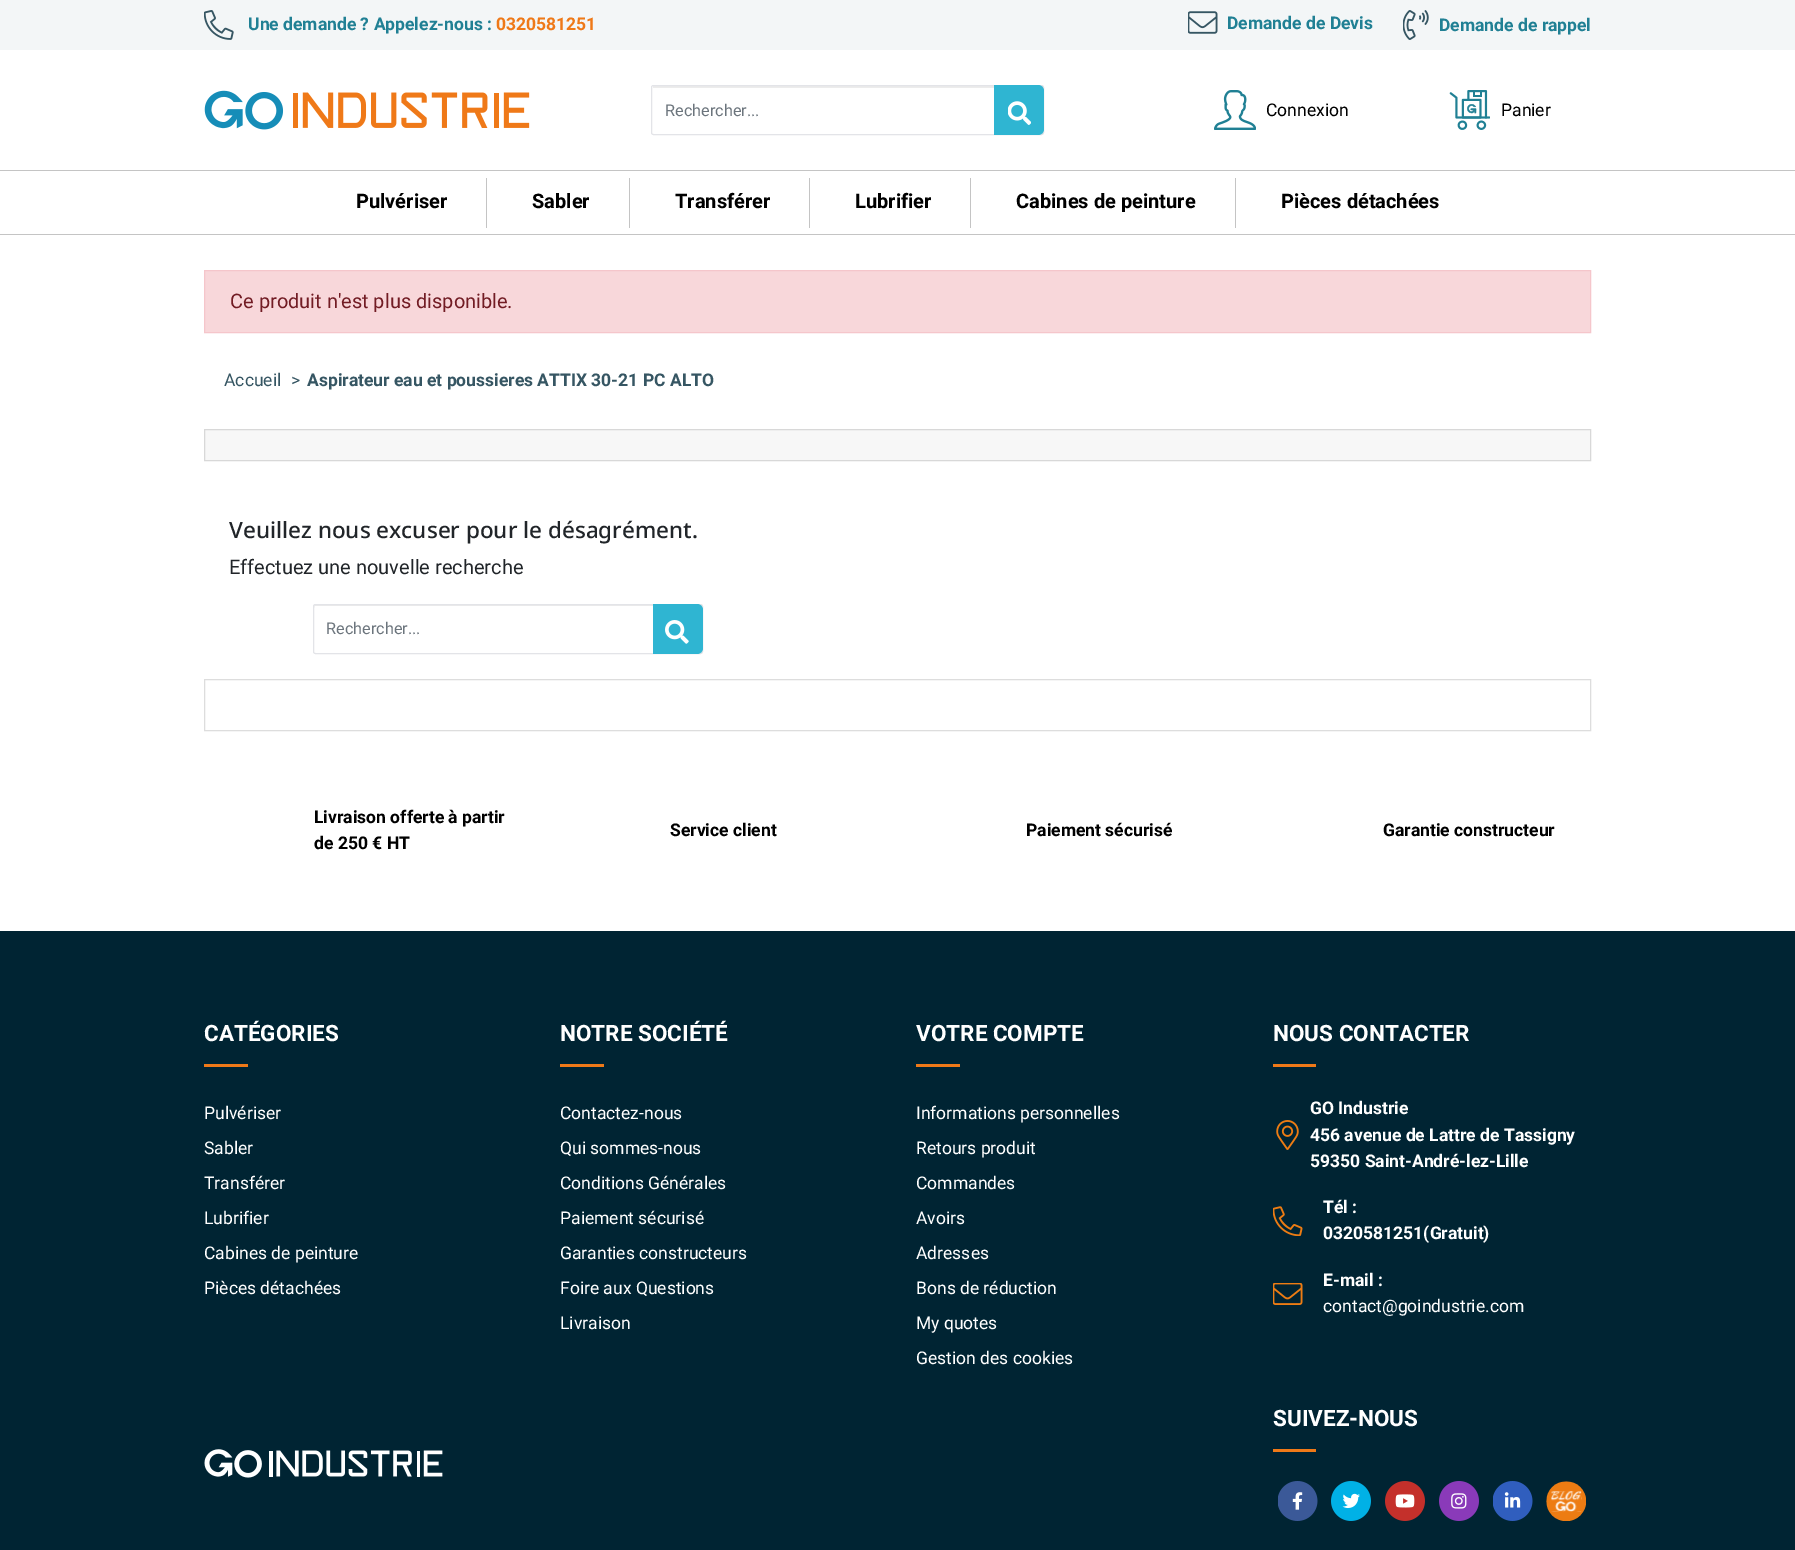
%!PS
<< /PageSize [1795 1550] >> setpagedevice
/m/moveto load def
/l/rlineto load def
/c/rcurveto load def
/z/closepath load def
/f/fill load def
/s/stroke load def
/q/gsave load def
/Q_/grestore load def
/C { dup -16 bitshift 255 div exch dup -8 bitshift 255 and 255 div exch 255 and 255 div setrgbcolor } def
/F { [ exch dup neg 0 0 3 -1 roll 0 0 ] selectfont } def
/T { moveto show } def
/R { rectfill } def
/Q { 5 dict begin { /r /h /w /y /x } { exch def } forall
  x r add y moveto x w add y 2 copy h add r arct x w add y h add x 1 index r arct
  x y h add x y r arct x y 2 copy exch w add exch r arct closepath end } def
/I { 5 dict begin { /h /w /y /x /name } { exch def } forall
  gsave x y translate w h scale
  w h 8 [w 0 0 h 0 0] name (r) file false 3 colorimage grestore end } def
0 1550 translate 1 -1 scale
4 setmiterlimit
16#FFFFFF C
0 0 1795 1550 R
16#F3F6F7 C
0 0 1795 50 R
(1.rgb) 204 10 30 30 I
/Roboto-Bold 17.5 F
16#208094 C
(Une demande ? Appelez-nous :) 248 30 T
16#EF7918 C
(0320581251) 496 30 T
(2.rgb) 1188 11 30 23 I
16#208094 C
(Demande de Devis) 1227 29 T
(3.rgb) 1403 10 26 30 I
(Demande de rappel) 1439 31 T
(4.rgb) 204 90 326 40 I
16#ECECEC C
654 88 m 387 0 l 1 0 1 0 1 1 c 0 45 l 1 -1 l 0 -46 l -1 -1 l -388 0 l -1 0 l 0 2 l z f
16#E3E4E8 C
651.5 85.5 392 49 2 Q s
/Roboto-Regular 16.25 F
16#6C757D C
(Rechercher...) 665 116 T
16#2FB5D2 C
994 85 m 44 0 l 3.5 0 6 2.5 6 6 c 0 38 l 0 3.5 -2.5 6 -6 6 c -44 0 l z f
(5.rgb) 1008 101 23 24 I
(6.rgb) 1214 90 42 40 I
/Roboto-Regular 17.5 F
16#000000 C
(Connexion) 1266 116 T
(7.rgb) 1449 90 41 40 I
(Panier) 1501 116 T
16#C4C4C4 C
0 170 1795 1 R
0 234 1795 1 R
/Roboto-Bold 20 F
16#000000 C
(Pulvériser) 356 208 T
16#C4C4C4 C
486 178 1 50 R
16#000000 C
(Sabler) 532 208 T
16#C4C4C4 C
629 178 1 50 R
16#000000 C
(Transférer) 675 208 T
16#C4C4C4 C
809 178 1 50 R
16#000000 C
(Lubrifier) 855 208 T
16#C4C4C4 C
970 178 1 50 R
16#000000 C
(Cabines de peinture) 1016 208 T
16#C4C4C4 C
1235 178 1 50 R
16#000000 C
(Pièces détachées) 1281 208 T
16#F8D7DA C
204.5 270.5 m 1386 0 l 0 62 l -1386 0 l z q f Q_
16#F5C6CB C
s
/Roboto-Regular 20 F
16#721C24 C
(Ce produit n'est plus disponible.) 230 308 T
/Roboto-Regular 17.5 F
16#365663 C
(Accueil) 224 386 T
(>) 291 386 T
/Roboto-Bold 17.5 F
(Aspirateur eau et poussieres ATTIX 30-21 PC ALTO) 307 386 T
16#F7F7F7 C
204.5 429.5 m 1386 0 l 0 31 l -1386 0 l z q f Q_
16#D8D8D8 C
s
/NotoSans-Medium 22.5 F
16#212529 C
(Veuillez nous excuser pour le désagrément.) 229 538 T
/Roboto-Regular 20 F
(Effectuez une nouvelle recherche) 229 574 T
16#ECECEC C
315 606 m 385 0 l 1 0 1 1 1 2 c 0 -1 0 -3 -1 -3 c -386 0 l 0 3 l 0 -1 0 -2 1 -2 c z f
16#E3E4E8 C
313.5 604.5 389 49 2 Q s
/Roboto-Regular 16.25 F
16#6C757D C
(Rechercher...) 326 634 T
16#2FB5D2 C
653 604 m 44 0 l 3.5 0 6 2.5 6 6 c 0 38 l 0 3.5 -2.5 6 -6 6 c -44 0 l z f
(8.rgb) 665 620 24 24 I
16#DDDDDD C
204.5 679.5 1386 51 rectstroke
/Roboto-Bold 17.5 F
16#000000 C
(Livraison offerte à partir) 314 823 T
(de 250 € HT) 314 849 T
(Service client) 670 836 T
(Paiement sécurisé) 1026 836 T
(Garantie constructeur) 1383 836 T
16#002433 C
0 931 1795 619 R
/Roboto-Bold 22.5 F
16#FFFFFF C
(CATÉGORIES) 204 1041 T
16#EF7918 C
204 1064 44 3 R
/Roboto-Regular 17.5 F
16#FFFFFF C
(Pulvériser) 204 1119 T
(Sabler) 204 1154 T
(Transférer) 204 1189 T
(Lubrifier) 204 1224 T
(Cabines de peinture) 204 1259 T
(Pièces détachées) 204 1294 T
/Roboto-Bold 22.5 F
(NOTRE SOCIÉTÉ) 560 1041 T
16#EF7918 C
560 1064 44 3 R
/Roboto-Regular 17.5 F
16#FFFFFF C
(Contactez-nous) 560 1119 T
(Qui sommes-nous) 560 1154 T
(Conditions Générales) 560 1189 T
(Paiement sécurisé) 560 1224 T
(Garanties constructeurs) 560 1259 T
(Foire aux Questions) 560 1294 T
(Livraison) 560 1329 T
/Roboto-Bold 22.5 F
(VOTRE COMPTE) 916 1041 T
16#EF7918 C
916 1064 44 3 R
/Roboto-Regular 17.5 F
16#FFFFFF C
(Informations personnelles) 916 1119 T
(Retours produit) 916 1154 T
(Commandes) 916 1189 T
(Avoirs) 916 1224 T
(Adresses) 916 1259 T
(Bons de réduction) 916 1294 T
(My quotes) 916 1329 T
(Gestion des cookies) 916 1364 T
/Roboto-Bold 22.5 F
(NOUS CONTACTER) 1273 1041 T
16#EF7918 C
1273 1064 43 3 R
(9.rgb) 1276 1120 23 30 I
/Roboto-Bold 17.5 F
16#FFFFFF C
(GO Industrie) 1310 1114 T
(456 avenue de Lattre de Tassigny) 1310 1141 T
(59350 Saint-André-lez-Lille) 1310 1167 T
(10.rgb) 1273 1206 30 30 I
(Tél :) 1323 1213 T
(0320581251\(Gratuit\)) 1323 1239 T
(11.rgb) 1273 1283 30 22 I
(E-mail :) 1323 1286 T
/Roboto-Regular 17.5 F
(contact@goindustrie.com) 1323 1312 T
/Roboto-Bold 22.5 F
(SUIVEZ-NOUS) 1273 1426 T
16#EF7918 C
1273 1449 43 3 R
(12.rgb) 1278 1481 40 40 I
(13.rgb) 1331 1481 40 40 I
(14.rgb) 1385 1481 40 40 I
(15.rgb) 1439 1481 40 40 I
(16.rgb) 1493 1481 40 40 I
(17.rgb) 1546 1481 40 40 I
(18.rgb) 204 1449 239 29 I
showpage
